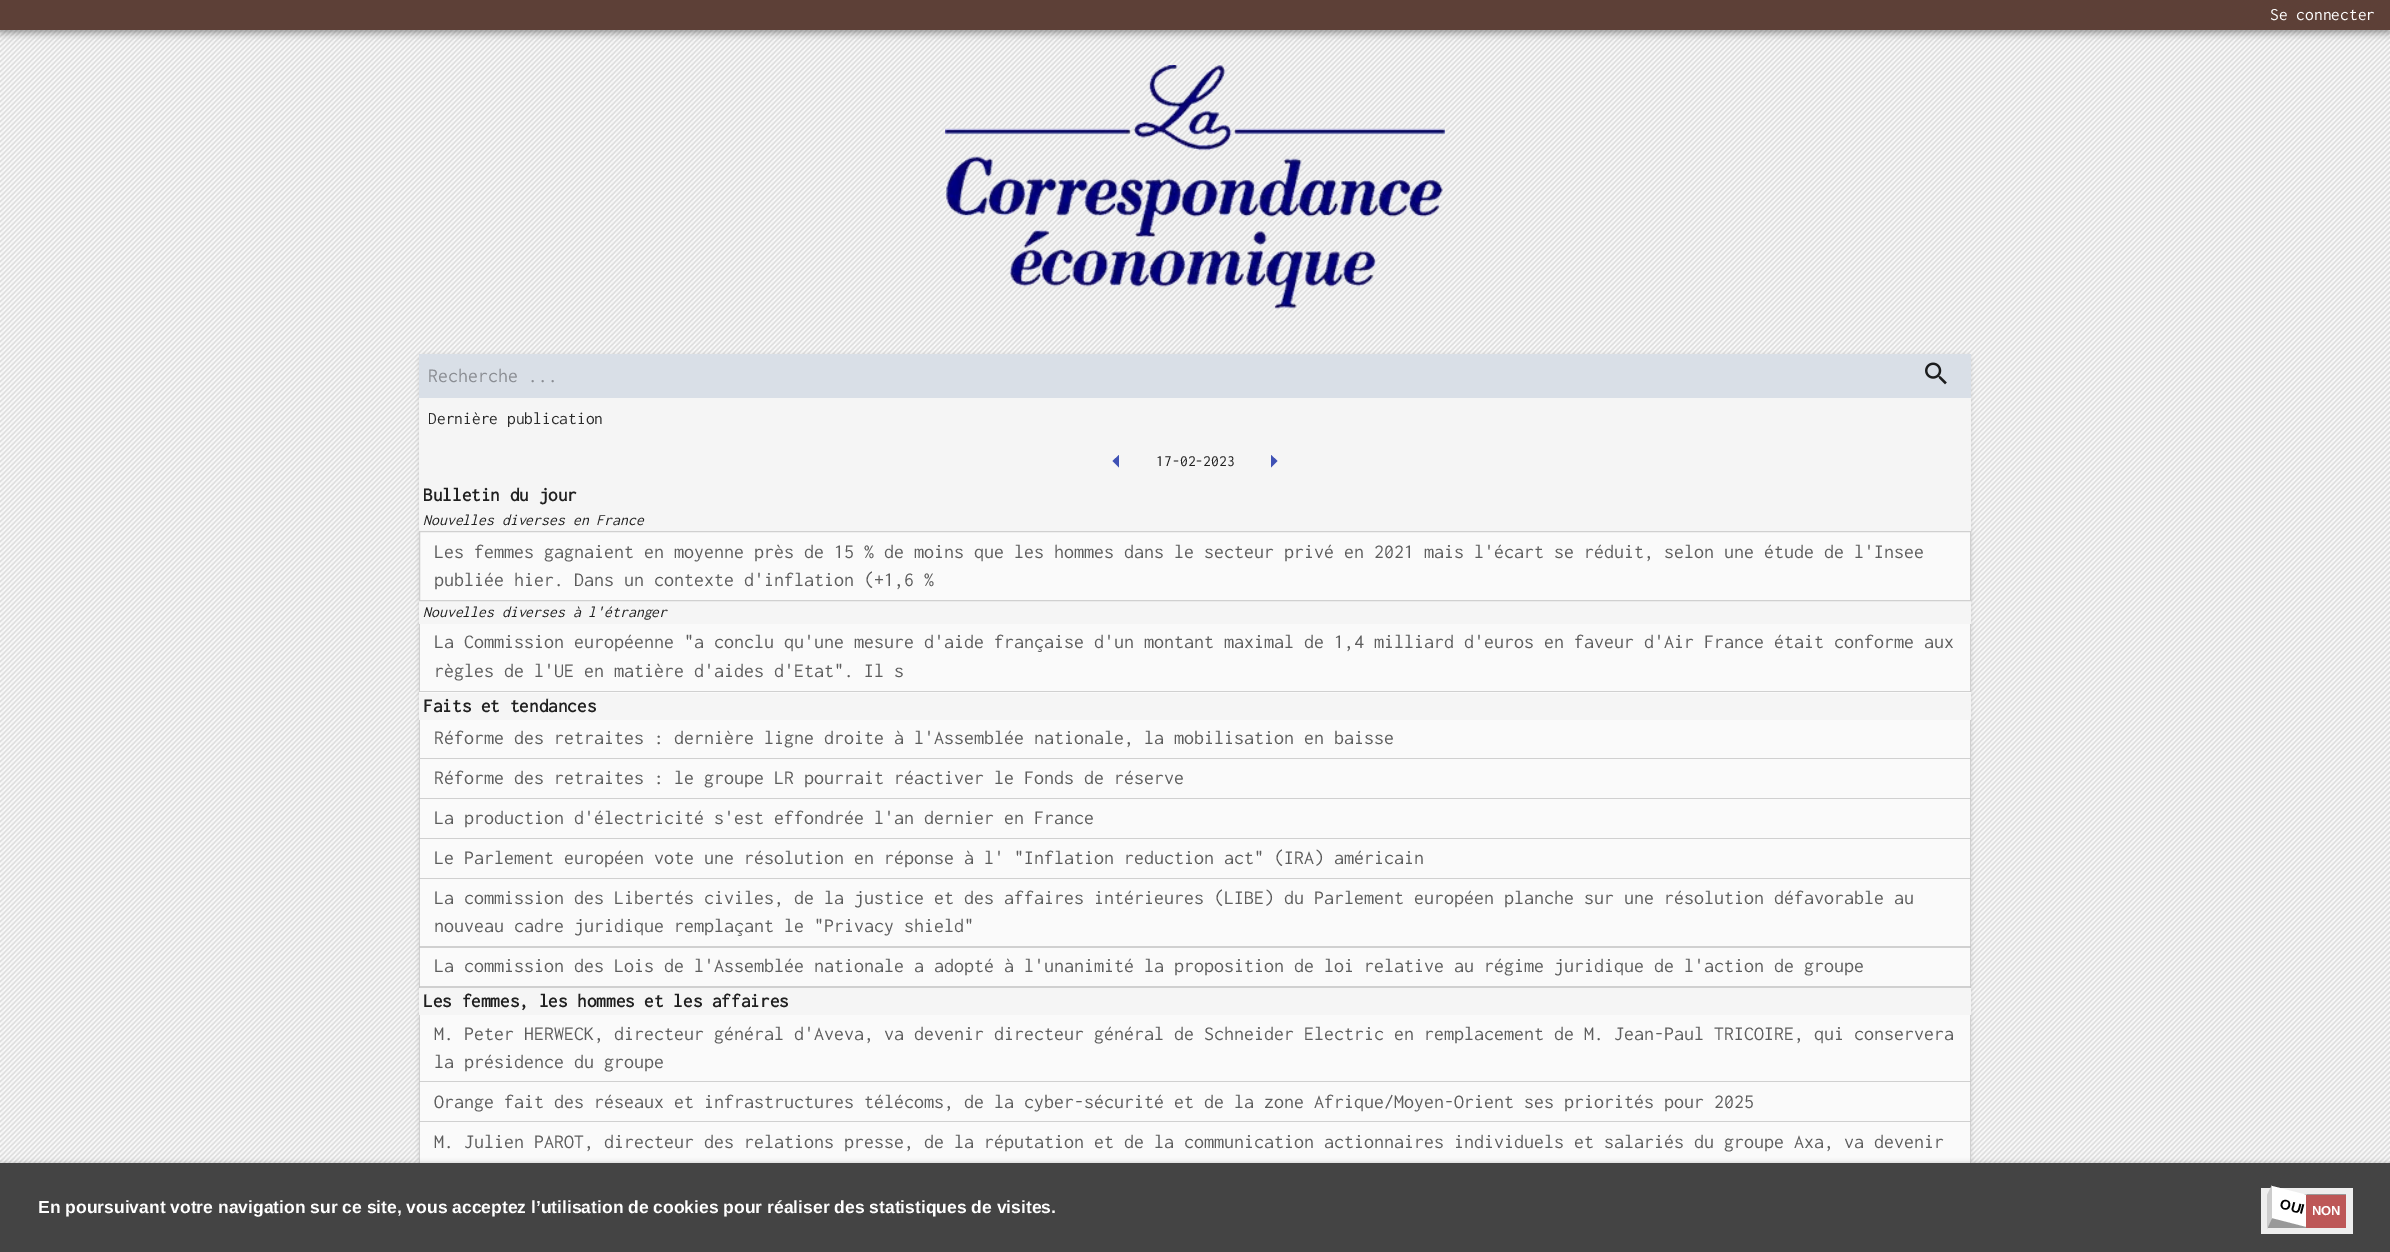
%!PS
<< /PageSize [2390 1252] /PageUsesTransparency true >> setpagedevice
/m/moveto load def
/l/rlineto load def
/z/closepath load def
/f/fill load def
/s/stroke load def
/q/gsave load def
/Q_/grestore load def
/C { dup -16 bitshift 255 div exch dup -8 bitshift 255 and 255 div exch 255 and 255 div setrgbcolor } def
/F { [ exch dup neg 0 0 3 -1 roll 0 0 ] selectfont } def
/T { moveto show } def
/R { rectfill } def
/A { dup .setfillconstantalpha .setstrokeconstantalpha } def
/Q { 5 dict begin { /r /h /w /y /x } { exch def } forall
  x r add y moveto x w add y 2 copy h add r arct x w add y h add x 1 index r arct
  x y h add x y r arct x y 2 copy exch w add exch r arct closepath end } def
/S { 12 dict begin { /a /b /q /h /w /y /x } { exch def } forall gsave /was 0 def
  9 -2 -9 { dup b mul 4 div /e exch def 1 sub .425 mul 2.718 exch exp 1 add a .99 .min exch div /now exch def
    1 1 now sub 1 was sub div sub A /was now def
    w h .min e 2 mul add 0 gt { x e sub y e sub w e 2 mul add h e 2 mul add
      q e add b .6 mul add w h .min 2 div e add .min 0 .max Q fill } if } for grestore end } def
/I { 5 dict begin { /h /w /y /x /name } { exch def } forall
  gsave x y translate w h scale
  w h 8 [w 0 0 h 0 0] name (r) file false 3 colorimage grestore end } def
0 .pushpdf14devicefilter
0 1252 translate 1 -1 scale
4 setmiterlimit
16#FAFAFA C
0 0 2390 1252 R
(1.rgb) 0 30 2390 1133 I
16#000000 C
0 1 2390 30 0 6 .12 S
0 5 2390 30 0 3 .14 S
1 4 2388 27 0 2.5 .2 S
16#5D4037 C
0 0 2390 30 R
/Inconsolata-Regular 17.5 F
16#FFFFFF C
(Se connecter) 2270 20 T
(2.rgb) 945 65 500 244 I
16#000000 C
419 355 1552 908 5 2 .12 S
16#F5F5F5 C
419 398 1552 617 R
16#D9DFE7 C
419 354 1552 44 R
/Inconsolata-Regular 20 F
16#8A8D93 C
(Recherche ...) 428 382 T
(3.rgb) 1925 362 22 23 I
/Inconsolata-Regular 17.5 F
16#2A2A2A C
(Dernière publication) 428 424 T
16#3F51B5 C
1119 455 m -6.5 6 l 6.5 6.5 l z f
/Inconsolata-Regular 15.75 F
16#202020 C
(17-02-2023) 1156 466 T
16#3F51B5 C
1271 467.5 m 6.5 -6.5 l -6.5 -6 l z f
/Inconsolata-Bold 19.25 F
16#202020 C
(Bulletin du jour) 423 501 T
/Inconsolata-Italic 15.75 F
(Nouvelles diverses en France) 423 525 T
16#FAFAFA C
419.5 531.5 m 1551 0 l 0 69 l -1551 0 l z q f Q_
16#D0D0D0 C
s
/Inconsolata-Regular 20 F
16#5D5D5D C
(Les femmes gagnaient en moyenne près de 15 % de moins que les hommes dans le secteur privé en 2021 mais l'écart se réduit, selon une étude de l'Insee) 434 558 T
(publiée hier. Dans un contexte d'inflation \(+1,6 %) 434 586 T
/Inconsolata-Italic 15.75 F
16#202020 C
(Nouvelles diverses à l'étranger) 423 617 T
16#FAFAFA C
419 624 1552 69 R
16#D0D0D0 C
1971 624 m 0 68 l -1 -1 l 0 -67 l z f
0.17 A
16#000000 C
1971 692 m -1552 0 l 1 -1 l 1550 0 l z f
419 692 m 0 -68 l 1 0 l 0 67 l z f
/Inconsolata-Regular 20 F
1 A
16#5D5D5D C
(La Commission européenne "a conclu qu'une mesure d'aide française d'un montant maximal de 1,4 milliard d'euros en faveur d'Air France était conforme aux) 434 648 T
(règles de l'UE en matière d'aides d'Etat". Il s) 434 677 T
/Inconsolata-Bold 19.25 F
16#202020 C
(Faits et tendances) 423 712 T
16#FAFAFA C
419 720 1552 268 R
16#D0D0D0 C
1971 720 m 0 39 l -1 -1.5 l 0 -37.5 l z f
0.17 A
16#000000 C
1971 759 m -1552 0 l 1 -1 l 1550 0 l z f
1 A
16#D0D0D0 C
419 759 m 0 -39 l 1 0 l 0 37.5 l z f
/Inconsolata-Regular 20 F
16#5D5D5D C
(Réforme des retraites : dernière ligne droite à l'Assemblée nationale, la mobilisation en baisse) 434 744 T
16#D0D0D0 C
1971 759 m 0 40 l -1 -1 l 0 -39 l z f
0.17 A
16#000000 C
1971 799 m -1552 0 l 1 -1 l 1550 0 l z f
419 799 m 0 -40 l 1 0 l 0 39 l z f
1 A
16#5D5D5D C
(Réforme des retraites : le groupe LR pourrait réactiver le Fonds de réserve) 434 784 T
16#D0D0D0 C
1971 799 m 0 40 l -1 -1 l 0 -39 l z f
0.17 A
16#000000 C
1971 839 m -1552 0 l 1 -1 l 1550 0 l z f
419 839 m 0 -40 l 1 0 l 0 39 l z f
1 A
16#5D5D5D C
(La production d'électricité s'est effondrée l'an dernier en France) 434 824 T
16#D0D0D0 C
1971 839 m 0 40 l -1 -1 l 0 -39 l z f
0.17 A
16#000000 C
1971 879 m -1552 0 l 1 -1 l 1550 0 l z f
419 879 m 0 -40 l 1 0 l 0 39 l z f
1 A
16#5D5D5D C
(Le Parlement européen vote une résolution en réponse à l' "Inflation reduction act" \(IRA\) américain) 434 864 T
16#D0D0D0 C
1971 879 m 0 69 l -1 -2 l 0 -67 l z f
0.17 A
16#000000 C
1971 948 m -1552 0 l 1 -2 l 1550 0 l z f
419 948 m 0 -69 l 1 0 l 0 67 l z f
1 A
16#5D5D5D C
(La commission des Libertés civiles, de la justice et des affaires intérieures \(LIBE\) du Parlement européen planche sur une résolution défavorable au) 434 904 T
(nouveau cadre juridique remplaçant le "Privacy shield") 434 932 T
16#D0D0D0 C
1971 948 m 0 40 l -1 -2 l 0 -38 l z f
0.17 A
16#000000 C
1971 988 m -1552 0 l 1 -2 l 1550 0 l z f
419 988 m 0 -40 l 1 0 l 0 38 l z f
1 A
16#5D5D5D C
(La commission des Lois de l'Assemblée nationale a adopté à l'unanimité la proposition de loi relative au régime juridique de l'action de groupe) 434 972 T
/Inconsolata-Bold 19.25 F
16#202020 C
(Les femmes, les hommes et les affaires) 423 1007 T
16#FAFAFA C
419 1015 1552 108 R
16#D0D0D0 C
1971 1015 m 0 67 l -1 -1 l 0 -66 l z f
0.17 A
16#000000 C
1971 1082 m -1552 0 l 1 -1 l 1550 0 l z f
419 1082 m 0 -67 l 1 0 l 0 66 l z f
/Inconsolata-Regular 20 F
1 A
16#5D5D5D C
(M. Peter HERWECK, directeur général d'Aveva, va devenir directeur général de Schneider Electric en remplacement de M. Jean-Paul TRICOIRE, qui conservera) 434 1040 T
(la présidence du groupe) 434 1068 T
16#D0D0D0 C
1971 1082 m 0 40 l -1 -1 l 0 -39 l z f
0.17 A
16#000000 C
1971 1122 m -1552 0 l 1 -1 l 1550 0 l z f
419 1122 m 0 -40 l 1 0 l 0 39 l z f
1 A
16#5D5D5D C
(Orange fait des réseaux et infrastructures télécoms, de la cyber-sécurité et de la zone Afrique/Moyen-Orient ses priorités pour 2025) 434 1108 T
16#FAFAFA C
419 1123 1551 40 R
16#D0D0D0 C
1971 1122 m 0 69 l -1 -1 l 0 -68 l z f
0.17 A
16#000000 C
419 1191 m 0 -69 l 1 0 l 0 68 l z f
1 A
16#5D5D5D C
(M. Julien PAROT, directeur des relations presse, de la réputation et de la communication actionnaires individuels et salariés du groupe Axa, va devenir) 434 1148 T
16#000000 C
1 1163 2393 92 0 2.5 .2 S
16#444444 C
0 1163 2390 89 R
/LiberationSans-Bold 17.5 F
16#FFFFFF C
(En poursuivant votre navigation sur ce site, vous acceptez l’utilisation de cookies pour réaliser des statistiques de visites.) 38 1213 T
16#EEEEEE C
2261 1228 92 6 R
16#999999 C
2268 1194 78 34 R
16#EEEEEE C
2261 1188 92 6 R
2346 1188 7 40 R
2261 1188 7 40 R
16#FFFFFF C
2272 1186 m 35 9 l 0 32 l -35 -9 l z f
16#CCCCCC C
2267 1195 m 5 -10 l 0 33 l -5 11 l z f
/LiberationSans-Bold 14 F
16#000000 C
q 2279 1208 translate 15 rotate 0 0 m (OUI) show Q_
16#BD5757 C
2306 1195 40 33 R
/LiberationSans-Bold 13 F
16#FFFFFF C
(NON) 2312 1215 T
.poppdf14devicefilter showpage
